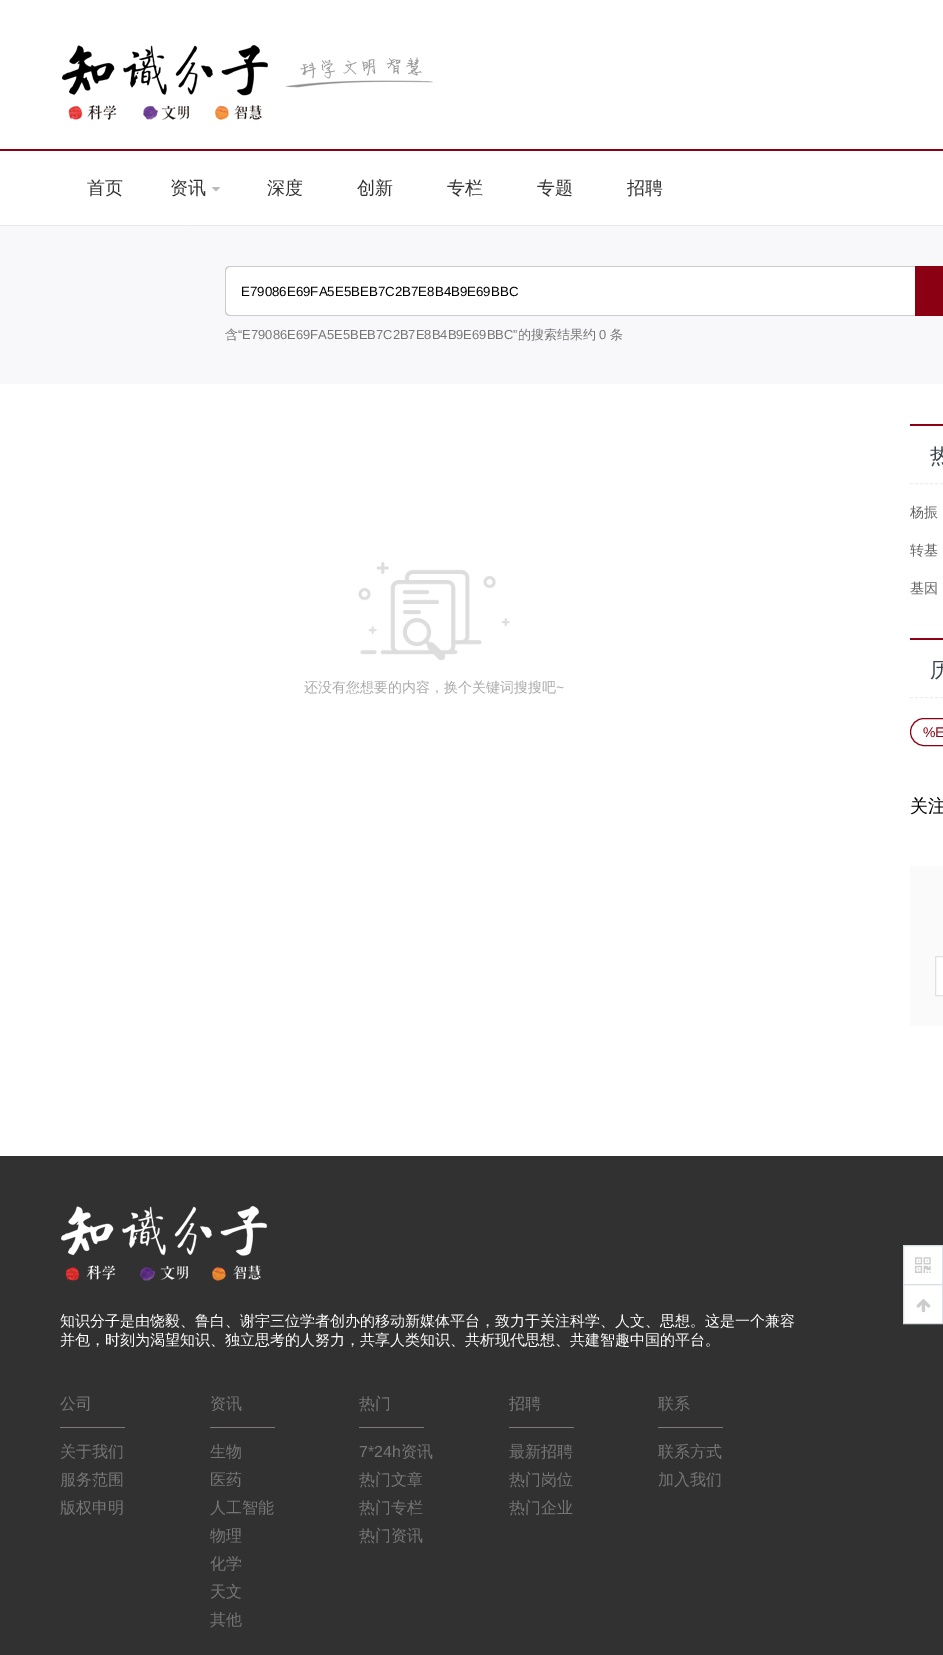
%!PS
<< /PageSize [943 1655] >> setpagedevice
/m/moveto load def
/l/rlineto load def
/c/rcurveto load def
/z/closepath load def
/f/fill load def
/s/stroke load def
/q/gsave load def
/Q_/grestore load def
/C { dup -16 bitshift 255 div exch dup -8 bitshift 255 and 255 div exch 255 and 255 div setrgbcolor } def
/F { [ exch dup neg 0 0 3 -1 roll 0 0 ] selectfont } def
/T { moveto show } def
/R { rectfill } def
/Q { 5 dict begin { /r /h /w /y /x } { exch def } forall
  x r add y moveto x w add y 2 copy h add r arct x w add y h add x 1 index r arct
  x y h add x y r arct x y 2 copy exch w add exch r arct closepath end } def
/I { 5 dict begin { /h /w /y /x /name } { exch def } forall
  gsave x y translate w h scale
  w h 8 [w 0 0 h 0 0] name (r) file false 3 colorimage grestore end } def
0 1655 translate 1 -1 scale
4 setmiterlimit
16#FFFFFF C
0 0 943 1655 R
16#8B0012 C
0 149 943 2 R
(1.rgb) 62 45 371 75 I
16#E6E8EB C
0 225 943 1 R
/WenQuanYiZenHei-Medium 18 F
16#333333 C
(首页) 87 194 T
(资讯) 170 194 T
(2.rgb) 212 187 8 5 I
16#F8F8FA C
0 226 943 158 R
187.5 225.5 m 8 8 l -.5 .5 l -8 -8 l z f
187.5 225.5 m 1 .5 l -8 8 l -.5 -.5 l z f
16#333333 C
(深度) 267 194 T
(创新) 357 194 T
(专栏) 447 194 T
(专题) 537 194 T
(招聘) 627 194 T
16#FFFFFF C
230 266 m 685 0 l 0 50 l -685 0 l -3 0 -5 -2 -5 -5 c 0 -40 l 0 -3 2 -5 5 -5 c z f
16#CCCCCC C
230 266 m 685 0 l 0 50 l -685 0 l -3 0 -5 -2 -5 -5 c 0 -40 l 0 -3 2 -5 5 -5 c z 230 267 m 685 0 l 0 48 l -685 0 l -2 0 -4 -2 -4 -4 c 0 -40 l 0 -2 2 -4 4 -4 c z eofill
/LiberationSans-Regular 13.3 F
16#000000 C
(E79086E69FA5E5BEB7C2B7E8B4B9E69BBC) 241 296 T
16#8B0012 C
915 266 28 50 R
/WenQuanYiZenHei-Medium 13 F
16#767676 C
(含) 225 339 T
/LiberationSans-Regular 13 F
(“E79086E69FA5E5BEB7C2B7E8B4B9E69BBC”) 238 339 T
/WenQuanYiZenHei-Medium 13 F
(的搜索结果约) 518 339 T
/LiberationSans-Regular 13 F
(0) 599 339 T
/WenQuanYiZenHei-Medium 13 F
(条) 610 339 T
(3.rgb) 358 562 152 99 I
/WenQuanYiZenHei-Medium 14 F
16#AAAAAA C
(还没有您想要的内容，换个关键词搜搜吧) 304 692 T
/LiberationSans-Regular 14 F
(~) 556 692 T
16#8B0012 C
910 424 33 2 R
16#F3EEEE C
[3 2.03] 0 setdash
910 483.5 m 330 0 l s
/WenQuanYiZenHei-Medium 21 F
16#3D464D C
(热) 930 463 T
/WenQuanYiZenHei-Medium 14 F
16#666666 C
(杨振) 910 517 T
(转基) 910 555 T
(基因) 910 593 T
16#8B0012 C
910 638 33 2 R
16#F3EEEE C
910 697.5 m 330 0 l s
/WenQuanYiZenHei-Medium 21 F
16#3D464D C
(历) 930 677 T
16#8B0012 C
[] 0 setdash
910.5 718.5 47 27 13.5 Q s
/LiberationSans-Regular 14 F
(%E) 923 737 T
/WenQuanYiZenHei-Medium 18 F
16#000000 C
(关注) 910 812 T
16#FAFAFA C
910 866 33 160 R
16#FFFFFF C
935.5 956.5 m 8 0 l 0 39 l -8 0 l z q f Q_
16#E1E1E1 C
s
16#313131 C
0 1156 943 499 R
16#FFFFFF C
903.5 1245.5 m 39 0 l 0 39 l -39 0 l z q f Q_
16#D7DDE3 C
s
(4.rgb) 915 1257 16 16 I
16#FFFFFF C
903.5 1284.5 m 39 0 l 0 39 l -39 0 l z q f Q_
16#D7DDE3 C
s
(5.rgb) 916 1299 15 14 I
(6.rgb) 61 1206 206 75 I
/WenQuanYiZenHei-Medium 15 F
16#FFFFFF C
(知识分子是由饶毅、鲁白、谢宇三位学者创办的移动新媒体平台，致力于关注科学、人文、思想。这是一个兼容) 60 1326 T
(并包，时刻为渴望知识、独立思考的人努力，共享人类知识、共析现代思想、共建智趣中国的平台。) 60 1345 T
/WenQuanYiZenHei-Medium 16 F
16#767676 C
(公司) 60 1409 T
16#7C7878 C
60 1427 65 1 R
16#767676 C
(关于我们) 60 1457 T
(服务范围) 60 1485 T
(版权申明) 60 1513 T
(资讯) 210 1409 T
16#7C7878 C
210 1427 65 1 R
16#767676 C
(生物) 210 1457 T
(医药) 210 1485 T
(人工智能) 210 1513 T
(物理) 210 1541 T
(化学) 210 1569 T
(天文) 210 1597 T
(其他) 210 1625 T
(热门) 359 1409 T
16#7C7878 C
359 1427 65 1 R
/LiberationSans-Regular 16 F
16#767676 C
(7*24h) 359 1457 T
/WenQuanYiZenHei-Medium 16 F
(资讯) 401 1457 T
(热门文章) 359 1485 T
(热门专栏) 359 1513 T
(热门资讯) 359 1541 T
(招聘) 509 1409 T
16#7C7878 C
509 1427 65 1 R
16#767676 C
(最新招聘) 509 1457 T
(热门岗位) 509 1485 T
(热门企业) 509 1513 T
(联系) 658 1409 T
16#7C7878 C
658 1427 65 1 R
16#767676 C
(联系方式) 658 1457 T
(加入我们) 658 1485 T
showpage
